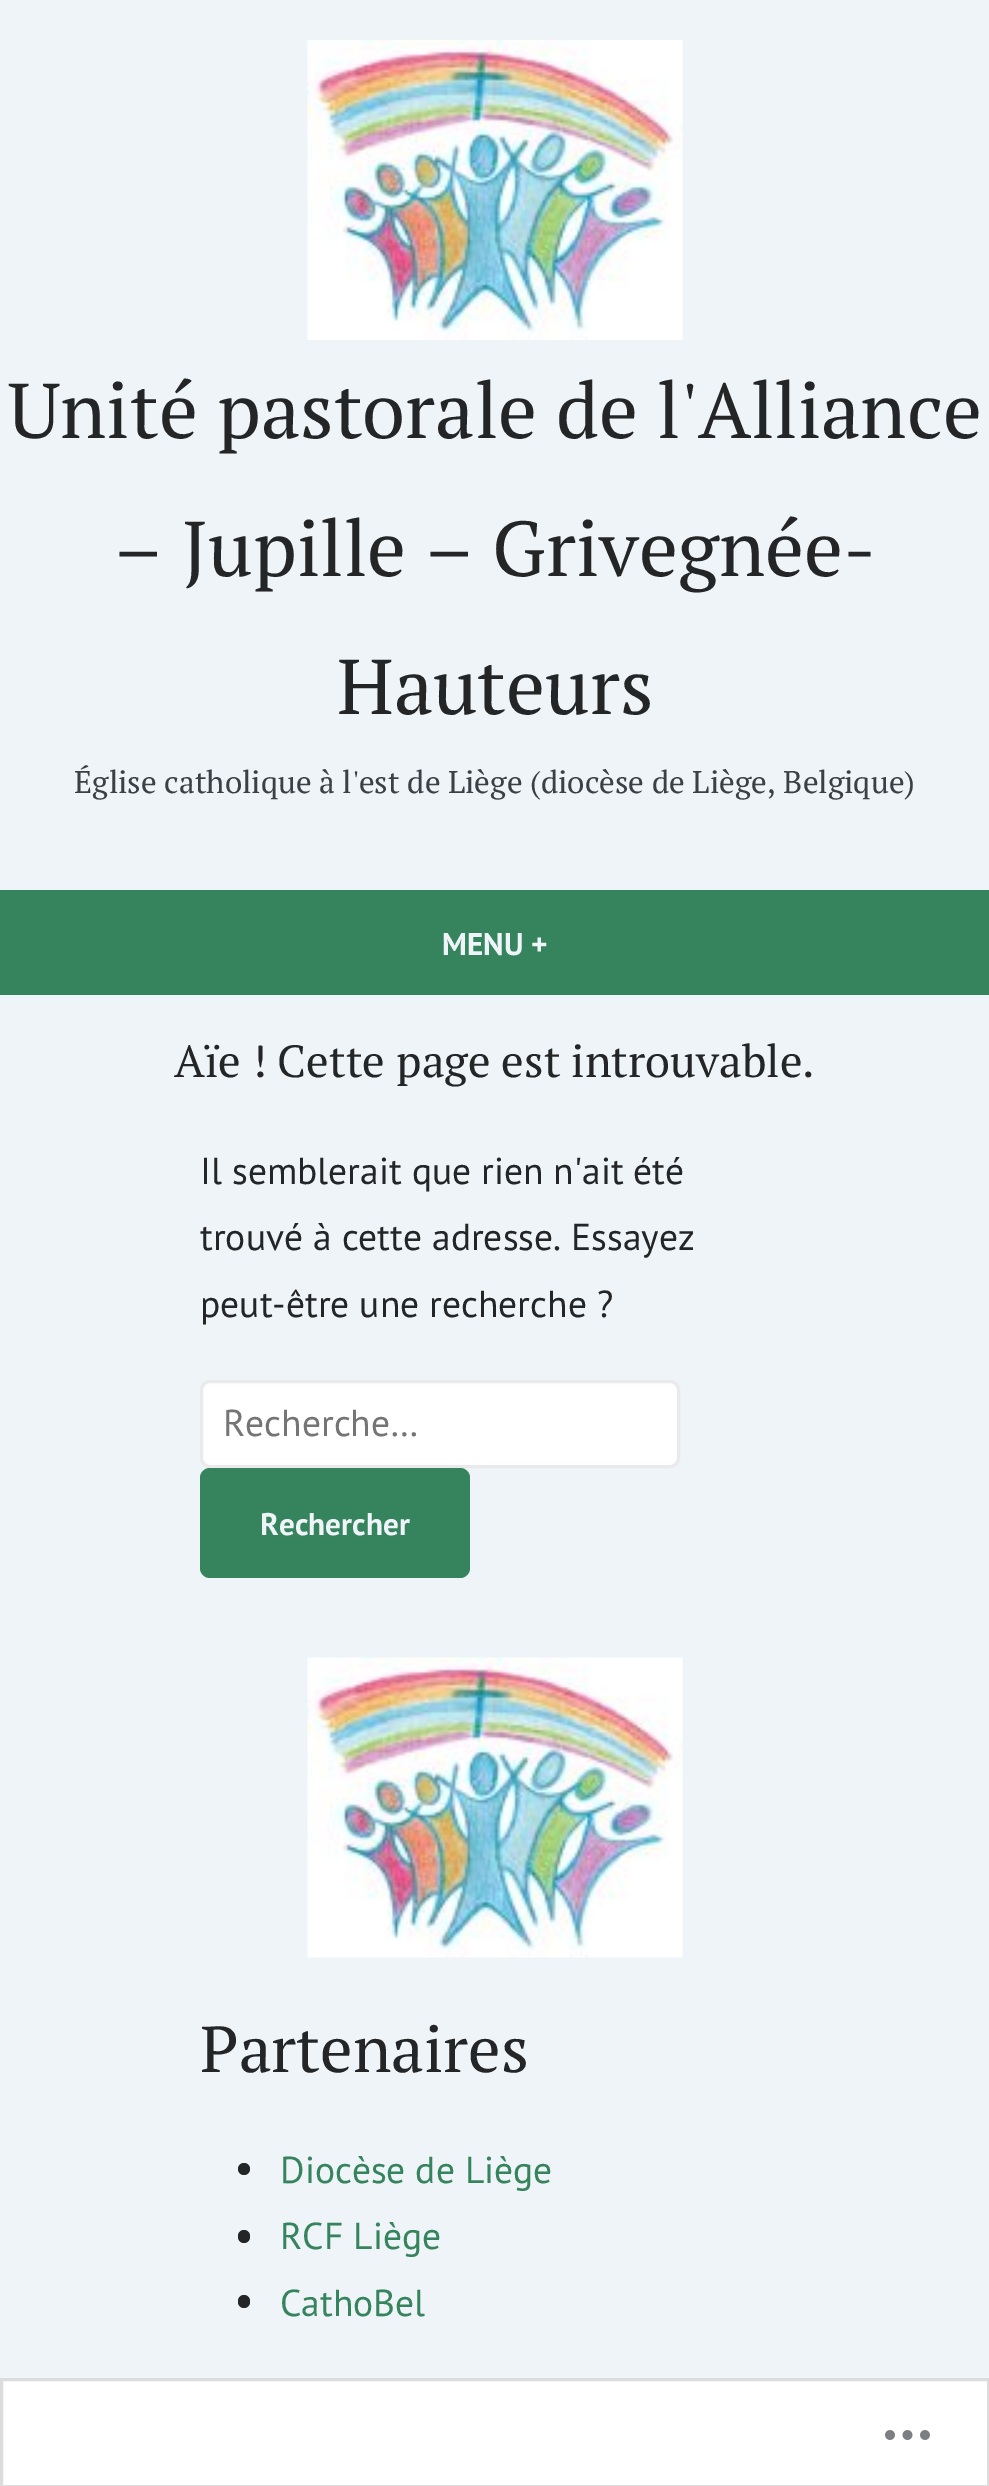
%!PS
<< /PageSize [989 2486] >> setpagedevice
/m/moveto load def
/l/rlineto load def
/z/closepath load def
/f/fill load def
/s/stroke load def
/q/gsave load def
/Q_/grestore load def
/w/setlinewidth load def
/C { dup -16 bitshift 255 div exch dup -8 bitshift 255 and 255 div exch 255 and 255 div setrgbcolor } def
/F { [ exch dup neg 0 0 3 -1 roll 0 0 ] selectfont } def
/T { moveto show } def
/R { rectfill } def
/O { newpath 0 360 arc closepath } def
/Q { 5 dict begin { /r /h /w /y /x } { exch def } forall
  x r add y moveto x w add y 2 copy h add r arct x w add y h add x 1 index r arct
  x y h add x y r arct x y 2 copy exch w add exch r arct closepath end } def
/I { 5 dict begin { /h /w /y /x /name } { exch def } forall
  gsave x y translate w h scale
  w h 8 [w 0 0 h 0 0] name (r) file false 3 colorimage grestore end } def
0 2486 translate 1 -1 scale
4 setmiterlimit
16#EEF4F7 C
0 0 989 2486 R
(1.rgb) 307 40 376 300 I
/PTSerif-Regular 77.75 F
16#242527 C
(Unité pastorale de l'Alliance) 8 438 T
(– Jupille – Grivegnée-) 114 576 T
(Hauteurs) 337 714 T
/PTSerif-Regular 31.25 F
16#3C3F45 C
(Église catholique à l'est de Liège \(diocèse de Liège, Belgique\)) 74 793 T
16#35845D C
0 890 989 105 R
/PTSans-Bold 31.25 F
16#EEF4F7 C
(MENU +) 442 955 T
/PTSerif-Regular 45 F
16#242527 C
(Aïe ! Cette page est introuvable.) 174 1077 T
/PTSans-Regular 37.5 F
(Il semblerait que rien n'ait été) 200 1184 T
(trouvé à cette adresse. Essayez) 200 1250 T
(peut-être une recherche ?) 200 1317 T
16#FFFFFF C
201.5 1381.5 477 85 8.5 Q q f Q_
16#EAEAEA C
3 w
s
16#757575 C
(Recherche…) 223 1436 T
16#35845D C
200 1468 270 110 10 Q f
/PTSans-Bold 31.25 F
16#EEF4F7 C
(Rechercher) 260 1535 T
(2.rgb) 307 1657 376 301 I
/PTSerif-Regular 64.75 F
16#242527 C
(Partenaires) 200 2072 T
244 2169 6 O f
/PTSans-Regular 37.5 F
16#35845D C
(Diocèse de Liège) 280 2183 T
16#242527 C
238 2230 12 13 6 Q f
16#35845D C
(RCF Liège) 280 2249 T
16#242527 C
238 2295 12 13 6 Q f
16#35845D C
(CathoBel) 280 2316 T
16#FFFFFF C
1.5 2379.5 m 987 0 l 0 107 l -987 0 l z q f Q_
16#DCDCDF C
s
(3.rgb) 885 2430 45 10 I
showpage
